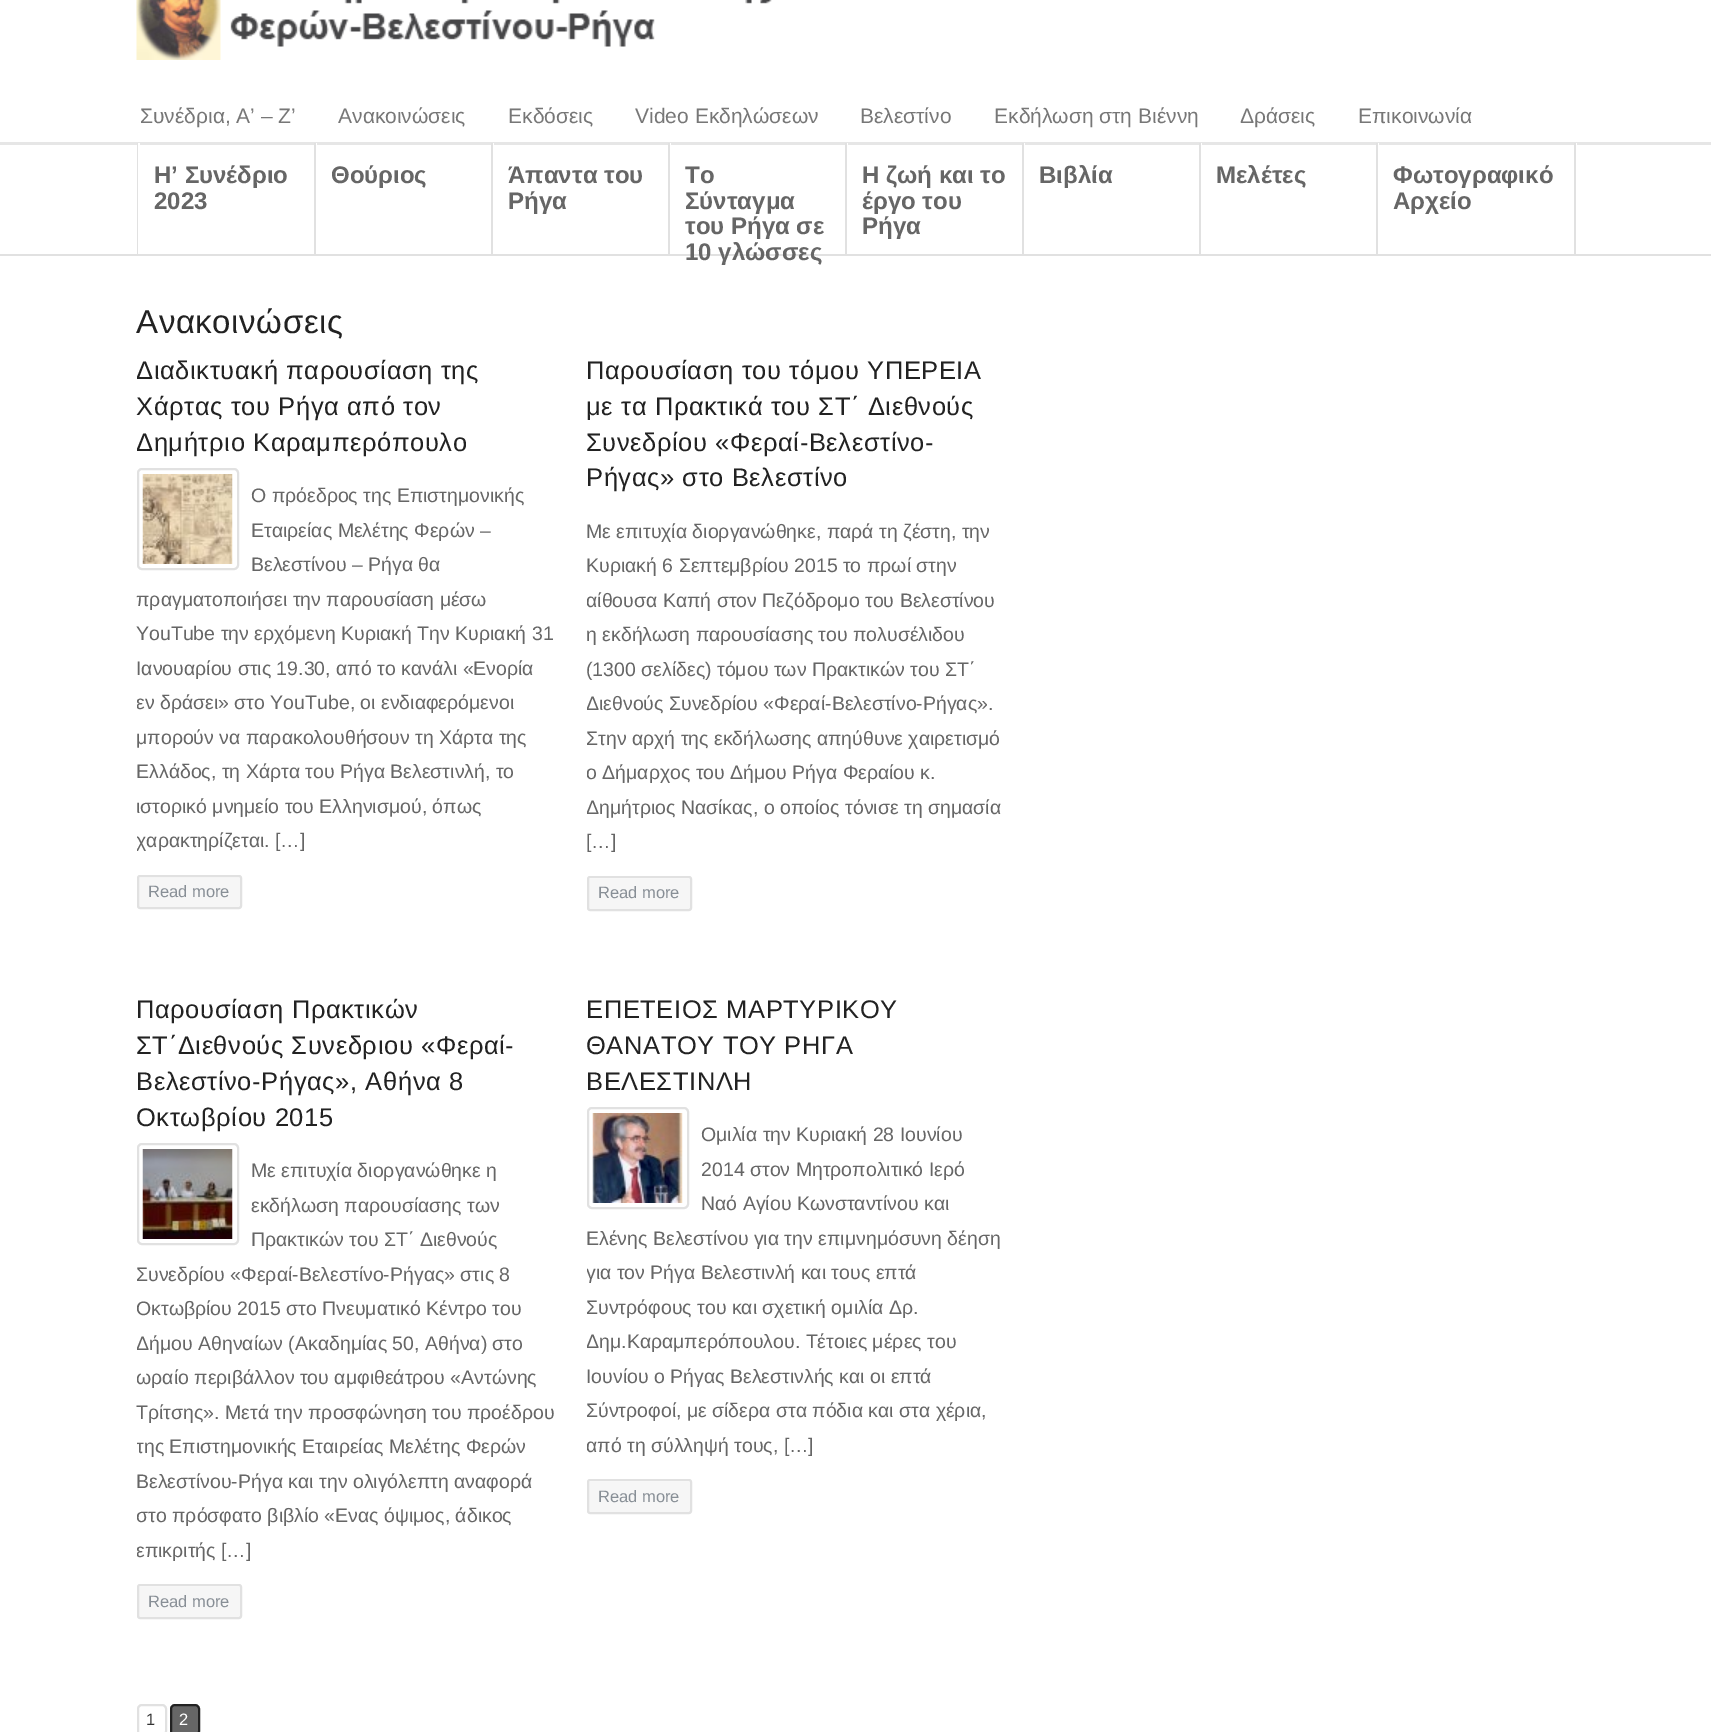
%!PS
<< /PageSize [1711 1732] >> setpagedevice
/m/moveto load def
/f/fill load def
/s/stroke load def
/q/gsave load def
/Q_/grestore load def
/w/setlinewidth load def
/C { dup -16 bitshift 255 div exch dup -8 bitshift 255 and 255 div exch 255 and 255 div setrgbcolor } def
/F { [ exch dup neg 0 0 3 -1 roll 0 0 ] selectfont } def
/T { moveto show } def
/R { rectfill } def
/Q { 5 dict begin { /r /h /w /y /x } { exch def } forall
  x r add y moveto x w add y 2 copy h add r arct x w add y h add x 1 index r arct
  x y h add x y r arct x y 2 copy exch w add exch r arct closepath end } def
/I { 5 dict begin { /h /w /y /x /name } { exch def } forall
  gsave x y translate w h scale
  w h 8 [w 0 0 h 0 0] name (r) file false 3 colorimage grestore end } def
0 1732 translate 1 -1 scale
4 setmiterlimit
16#FFFFFF C
0 0 1711 1732 R
16#E6E6E6 C
0 142 1711 3 R
16#E1E1E1 C
0 254 1711 2 R
(1.rgb) 136 0 636 60 I
/LiberationSans-Regular 21 F
16#777777 C
(Συνέδρια, A’ – Z’) 140 123 T
(Ανακοινώσεις) 338 123 T
(Εκδόσεις) 508 123 T
(Video Εκδηλώσεων) 635 123 T
(Βελεστίνο) 860 123 T
(Εκδήλωση στη Βιέννη) 994 123 T
(Δράσεις) 1240 123 T
(Επικοινωνία) 1358 123 T
16#FFFFFF C
1576 143 1 2 R
16#E1E1E1 C
137 143 1 111 R
1574 143 2 111 R
16#FFFFFF C
138 143 2 2 R
316 143 1 2 R
16#E1E1E1 C
314 143 2 111 R
/LiberationSans-Bold 24 F
16#666666 C
(Η’ Συνέδριο) 154 183 T
(2023) 154 209 T
16#FFFFFF C
493 143 1 2 R
16#E1E1E1 C
491 143 2 111 R
16#666666 C
(Θούριος) 331 183 T
16#FFFFFF C
670 143 1 2 R
16#E1E1E1 C
668 143 2 111 R
16#666666 C
(Άπαντα του) 508 183 T
(Ρήγα) 508 209 T
16#FFFFFF C
847 143 1 2 R
16#E1E1E1 C
845 143 2 111 R
16#666666 C
(Το) 685 183 T
(Σύνταγμα) 685 209 T
(του Ρήγα σε) 685 234 T
(10 γλώσσες) 685 260 T
16#FFFFFF C
1024 143 1 2 R
16#E1E1E1 C
1022 143 2 111 R
16#666666 C
(Η ζωή και το) 862 183 T
(έργο του) 862 209 T
(Ρήγα) 862 234 T
16#FFFFFF C
1201 143 1 2 R
16#E1E1E1 C
1199 143 2 111 R
16#666666 C
(Βιβλία) 1039 183 T
16#FFFFFF C
1378 143 1 2 R
16#E1E1E1 C
1376 143 2 111 R
16#666666 C
(Μελέτες) 1216 183 T
(Φωτογραφικό) 1393 183 T
(Αρχείο) 1393 209 T
/LiberationSans-Regular 33 F
16#222222 C
136 333 m .6 0 (Ανακοινώσεις) ashow
q
137 354 420 563 rectclip
/LiberationSans-Regular 25.5 F
136 379 m .6 0 (Διαδικτυακή παρουσίαση της) ashow
Q_
/LiberationSans-Regular 25.5 F
136 415 m .6 0 (Χάρτας του Ρήγα από τον) ashow
q
137 354 420 563 rectclip
136 451 m .6 0 (Δημήτριο Καραμπερόπουλο) ashow
Q_
16#E1E1E1 C
2 w
138 469 100 100 4 Q s
(2.rgb) 142 474 91 90 I
/LiberationSans-Regular 19.5 F
16#666666 C
(Ο πρόεδρος της Επιστημονικής) 251 502 T
(Εταιρείας Μελέτης Φερών –) 251 537 T
(Βελεστίνου – Ρήγα θα) 251 571 T
(πραγματοποιήσει την παρουσίαση μέσω) 136 606 T
(YouTube την ερχόμενη Κυριακή Την Κυριακή 31) 136 640 T
(Ιανουαρίου στις 19.30, από το κανάλι «Ενορία) 136 675 T
q
137 354 420 563 rectclip
(εν δράσει» στο YouTube, οι ενδιαφερόμενοι) 136 709 T
Q_
(μπορούν να παρακολουθήσουν τη Χάρτα της) 136 744 T
(Ελλάδος, τη Χάρτα του Ρήγα Βελεστινλή, το) 136 778 T
(ιστορικό μνημείο του Ελληνισμού, όπως) 136 813 T
q
137 354 420 563 rectclip
(χαρακτηρίζεται. […]) 136 847 T
Q_
16#F6F6F6 C
137 875 105 34 3 Q f
(3.rgb) 137 876 103 2 I
16#E1E1E1 C
138 876 103 32 2 Q s
/LiberationSans-Regular 16.5 F
16#888F96 C
(Read more) 148 897 T
/LiberationSans-Regular 25.5 F
16#222222 C
586 379 m .6 0 (Παρουσίαση του τόμου ΥΠΕΡΕΙΑ) ashow
586 415 m .6 0 (με τα Πρακτικά του ΣΤ΄ Διεθνούς) ashow
586 451 m .6 0 (Συνεδρίου «Φεραί-Βελεστίνο-) ashow
586 486 m .6 0 (Ρήγας» στο Βελεστίνο) ashow
/LiberationSans-Regular 19.5 F
16#666666 C
(Με επιτυχία διοργανώθηκε, παρά τη ζέστη, την) 586 538 T
(Κυριακή 6 Σεπτεμβρίου 2015 το πρωί στην) 586 572 T
q
587 354 420 564 rectclip
(αίθουσα Καπή στον Πεζόδρομο του Βελεστίνου) 586 607 T
Q_
(η εκδήλωση παρουσίασης του πολυσέλιδου) 586 641 T
(\(1300 σελίδες\) τόμου των Πρακτικών του ΣΤ΄) 586 676 T
q
587 354 420 564 rectclip
(Διεθνούς Συνεδρίου «Φεραί-Βελεστίνο-Ρήγας».) 586 710 T
Q_
(Στην αρχή της εκδήλωσης απηύθυνε χαιρετισμό) 586 745 T
q
587 354 420 564 rectclip
(ο Δήμαρχος του Δήμου Ρήγα Φεραίου κ.) 586 779 T
(Δημήτριος Νασίκας, ο οποίος τόνισε τη σημασία) 586 814 T
Q_
([…]) 586 848 T
16#F6F6F6 C
587 876 105 35 3 Q f
(4.rgb) 587 877 103 2 I
16#E1E1E1 C
588 877 103 33 2 Q s
/LiberationSans-Regular 16.5 F
16#888F96 C
(Read more) 598 898 T
/LiberationSans-Regular 25.5 F
16#222222 C
136 1018 m .6 0 (Παρουσίαση Πρακτικών) ashow
136 1054 m .6 0 (ΣΤ΄Διεθνούς Συνεδριου «Φεραί-) ashow
136 1090 m .6 0 (Βελεστίνο-Ρήγας», Αθήνα 8) ashow
136 1126 m .6 0 (Οκτωβρίου 2015) ashow
16#E1E1E1 C
138 1144 100 100 4 Q s
(5.rgb) 142 1149 91 90 I
/LiberationSans-Regular 19.5 F
16#666666 C
(Με επιτυχία διοργανώθηκε η) 251 1177 T
(εκδήλωση παρουσίασης των) 251 1212 T
(Πρακτικών του ΣΤ΄ Διεθνούς) 251 1246 T
(Συνεδρίου «Φεραί-Βελεστίνο-Ρήγας» στις 8) 136 1281 T
q
137 993 420 633 rectclip
(Οκτωβρίου 2015 στο Πνευματικό Κέντρο του) 136 1315 T
(Δήμου Αθηναίων \(Ακαδημίας 50, Αθήνα\) στο) 136 1350 T
(ωραίο περιβάλλον του αμφιθεάτρου «Αντώνης) 136 1384 T
Q_
(Τρίτσης». Μετά την προσφώνηση του προέδρου) 136 1419 T
q
137 993 420 633 rectclip
(της Επιστημονικής Εταιρείας Μελέτης Φερών) 136 1453 T
Q_
(Βελεστίνου-Ρήγα και την ολιγόλεπτη αναφορά) 136 1488 T
q
137 993 420 633 rectclip
(στο πρόσφατο βιβλίο «Ενας όψιμος, άδικος) 136 1522 T
(επικριτής […]) 136 1557 T
Q_
16#F6F6F6 C
137 1584 105 35 3 Q f
(4.rgb) 137 1585 103 2 I
16#E1E1E1 C
138 1585 103 33 2 Q s
/LiberationSans-Regular 16.5 F
16#888F96 C
(Read more) 148 1607 T
/LiberationSans-Regular 25.5 F
16#222222 C
586 1018 m .6 0 (ΕΠΕΤΕΙΟΣ ΜΑΡΤΥΡΙΚΟΥ) ashow
586 1054 m .6 0 (ΘΑΝΑΤΟΥ ΤΟΥ ΡΗΓΑ) ashow
586 1090 m .6 0 (ΒΕΛΕΣΤΙΝΛΗ) ashow
16#E1E1E1 C
588 1108 100 100 4 Q s
(6.rgb) 592 1113 91 90 I
/LiberationSans-Regular 19.5 F
16#666666 C
(Ομιλία την Κυριακή 28 Ιουνίου) 701 1141 T
(2014 στον Μητροπολιτικό Ιερό) 701 1176 T
(Ναό Αγίου Κωνσταντίνου και) 701 1210 T
(Ελένης Βελεστίνου για την επιμνημόσυνη δέηση) 586 1245 T
q
587 993 420 528 rectclip
(για τον Ρήγα Βελεστινλή και τους επτά) 586 1279 T
Q_
(Συντρόφους του και σχετική ομιλία Δρ.) 586 1314 T
q
587 993 420 528 rectclip
(Δημ.Καραμπερόπουλου. Τέτοιες μέρες του) 586 1348 T
Q_
(Ιουνίου ο Ρήγας Βελεστινλής και οι επτά) 586 1383 T
(Σύντροφοί, με σίδερα στα πόδια και στα χέρια,) 586 1417 T
q
587 993 420 528 rectclip
(από τη σύλληψή τους, […]) 586 1452 T
Q_
16#F6F6F6 C
587 1479 105 35 3 Q f
(4.rgb) 587 1480 103 2 I
16#E1E1E1 C
588 1480 103 33 2 Q s
/LiberationSans-Regular 16.5 F
16#888F96 C
(Read more) 598 1502 T
16#E1E1E1 C
138 1705 28 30 4 Q s
16#333333 C
(1) 146 1725 T
16#666666 C
171 1705 28 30 4 Q q f Q_
16#222222 C
s
16#FFFFFF C
(2) 179 1725 T
showpage
